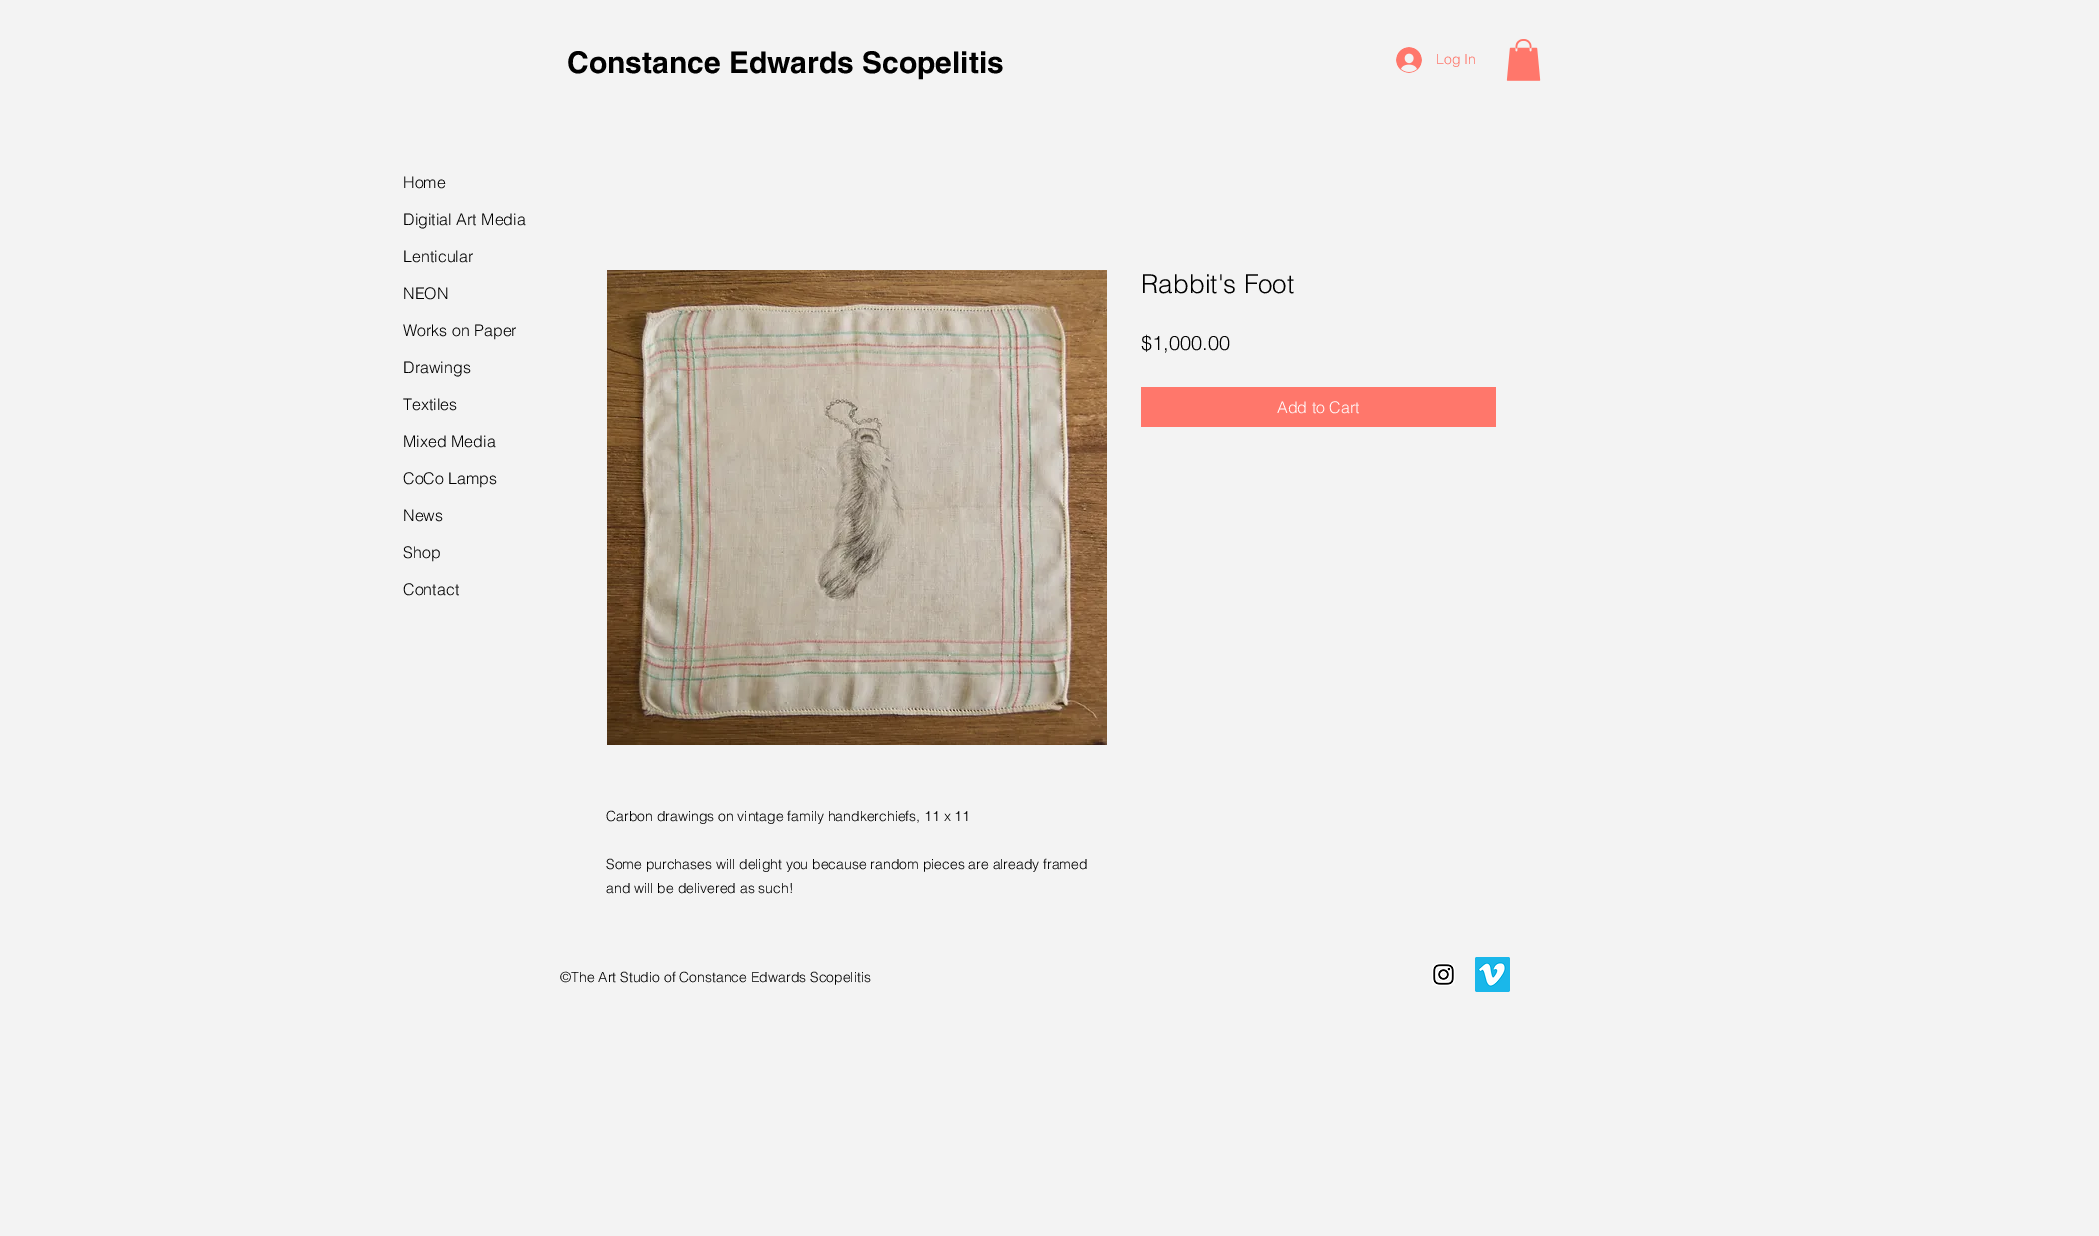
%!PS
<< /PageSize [2099 1236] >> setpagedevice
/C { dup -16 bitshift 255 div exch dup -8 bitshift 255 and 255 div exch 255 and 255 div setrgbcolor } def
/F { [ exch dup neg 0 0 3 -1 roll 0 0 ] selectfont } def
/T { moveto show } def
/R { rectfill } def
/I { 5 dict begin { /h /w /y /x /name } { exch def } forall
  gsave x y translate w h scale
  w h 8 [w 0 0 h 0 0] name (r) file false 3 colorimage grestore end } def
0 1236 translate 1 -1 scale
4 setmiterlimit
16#F3F3F3 C
0 0 2099 1236 R
/helvetica-Bold 30 F
16#000000 C
(Constance Edwards Scopelitis) 567 73 T
(1.rgb) 1396 47 26 26 I
/helvetica-Light 14 F
16#FF776B C
(Log In) 1436 64 T
(2.rgb) 1506 39 35 42 I
/helvetica-Light 16 F
16#000000 C
(Home) 403 188 T
(Digitial Art Media) 403 225 T
(Lenticular) 403 262 T
(NEON) 403 299 T
(Works on Paper) 403 336 T
(Drawings) 403 373 T
(Textiles) 403 410 T
(Mixed Media) 403 447 T
(CoCo Lamps) 403 484 T
(News) 403 521 T
(Shop) 403 558 T
(Contact) 403 595 T
/helvetica-Light 26 F
(Rabbit's Foot) 1141 293 T
/helvetica-Light 20 F
($1,000.00) 1141 350 T
16#FF776B C
1141 387 355 40 R
/helvetica-Light 16 F
16#FFFFFF C
(Add to Cart) 1277 413 T
(3.rgb) 607 270 500 475 I
/helvetica-Light 14 F
16#000000 C
(Carbon drawings on vintage family handkerchiefs, 11 x 11) 606 821 T
(Some purchases will delight you because random pieces are already framed) 606 869 T
(and will be delivered as such!) 606 893 T
(©The Art Studio of Constance Edwards Scopelitis) 560 982 T
(4.rgb) 1432 963 23 23 I
(5.rgb) 1475 957 35 35 I
showpage
